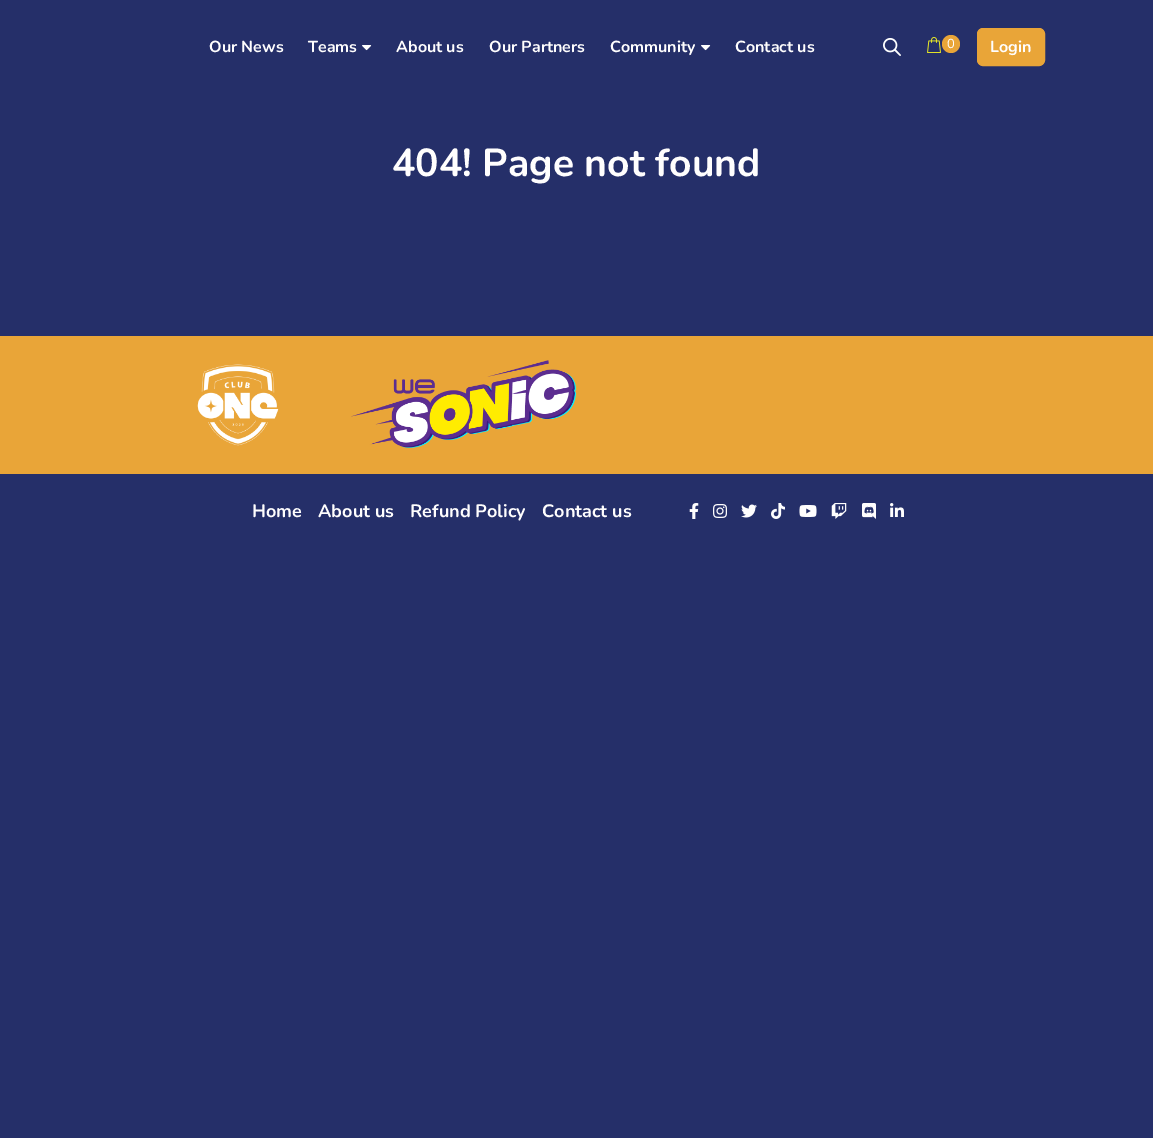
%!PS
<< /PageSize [1153 1138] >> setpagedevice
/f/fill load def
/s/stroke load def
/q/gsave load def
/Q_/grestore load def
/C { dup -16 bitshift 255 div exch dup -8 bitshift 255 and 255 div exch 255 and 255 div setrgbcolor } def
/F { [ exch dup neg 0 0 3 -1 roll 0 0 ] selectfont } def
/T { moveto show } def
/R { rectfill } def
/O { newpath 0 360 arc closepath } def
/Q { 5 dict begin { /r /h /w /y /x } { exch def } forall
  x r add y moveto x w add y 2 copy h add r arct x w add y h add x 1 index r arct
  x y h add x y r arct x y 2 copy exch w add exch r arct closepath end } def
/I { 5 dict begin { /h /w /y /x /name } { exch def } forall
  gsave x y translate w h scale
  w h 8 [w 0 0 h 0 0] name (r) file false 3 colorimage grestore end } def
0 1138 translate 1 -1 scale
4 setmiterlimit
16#252F69 C
0 0 1153 1138 R
/Nunito-Bold 16 F
16#FFFEFE C
(Our News) 209 52 T
(Teams) 308 52 T
(1.rgb) 362 45 10 6 I
(About us) 396 52 T
(Our Partners) 489 52 T
(Community) 610 52 T
(1.rgb) 701 45 10 6 I
(Contact us) 735 52 T
(2.rgb) 883 38 18 18 I
(3.rgb) 927 37 14 16 I
16#E9A538 C
951 44 9 O f
/Nunito-Regular 13 F
16#FFFEFE C
(0) 947 48 T
16#E9A538 C
977.5 28.5 67 37 5.5 Q q f Q_
s
/Nunito-Bold 16 F
16#FFFEFE C
(Login) 990 52 T
/Nunito-Bold 39 F
(404! Page not found) 392 176 T
16#E9A538 C
0 336 1153 138 R
(4.rgb) 197 364 82 82 I
(5.rgb) 351 360 225 88 I
/Nunito-Bold 18 F
16#FFFEFE C
(Home) 252 517 T
(About us) 318 517 T
(Refund Policy) 410 517 T
(Contact us) 542 517 T
(6.rgb) 689 503 10 16 I
(7.rgb) 713 504 14 14 I
(8.rgb) 741 504 16 14 I
(9.rgb) 771 503 14 16 I
(10.rgb) 799 505 18 12 I
(11.rgb) 831 503 16 16 I
(12.rgb) 862 503 14 16 I
(13.rgb) 890 503 14 14 I
showpage
